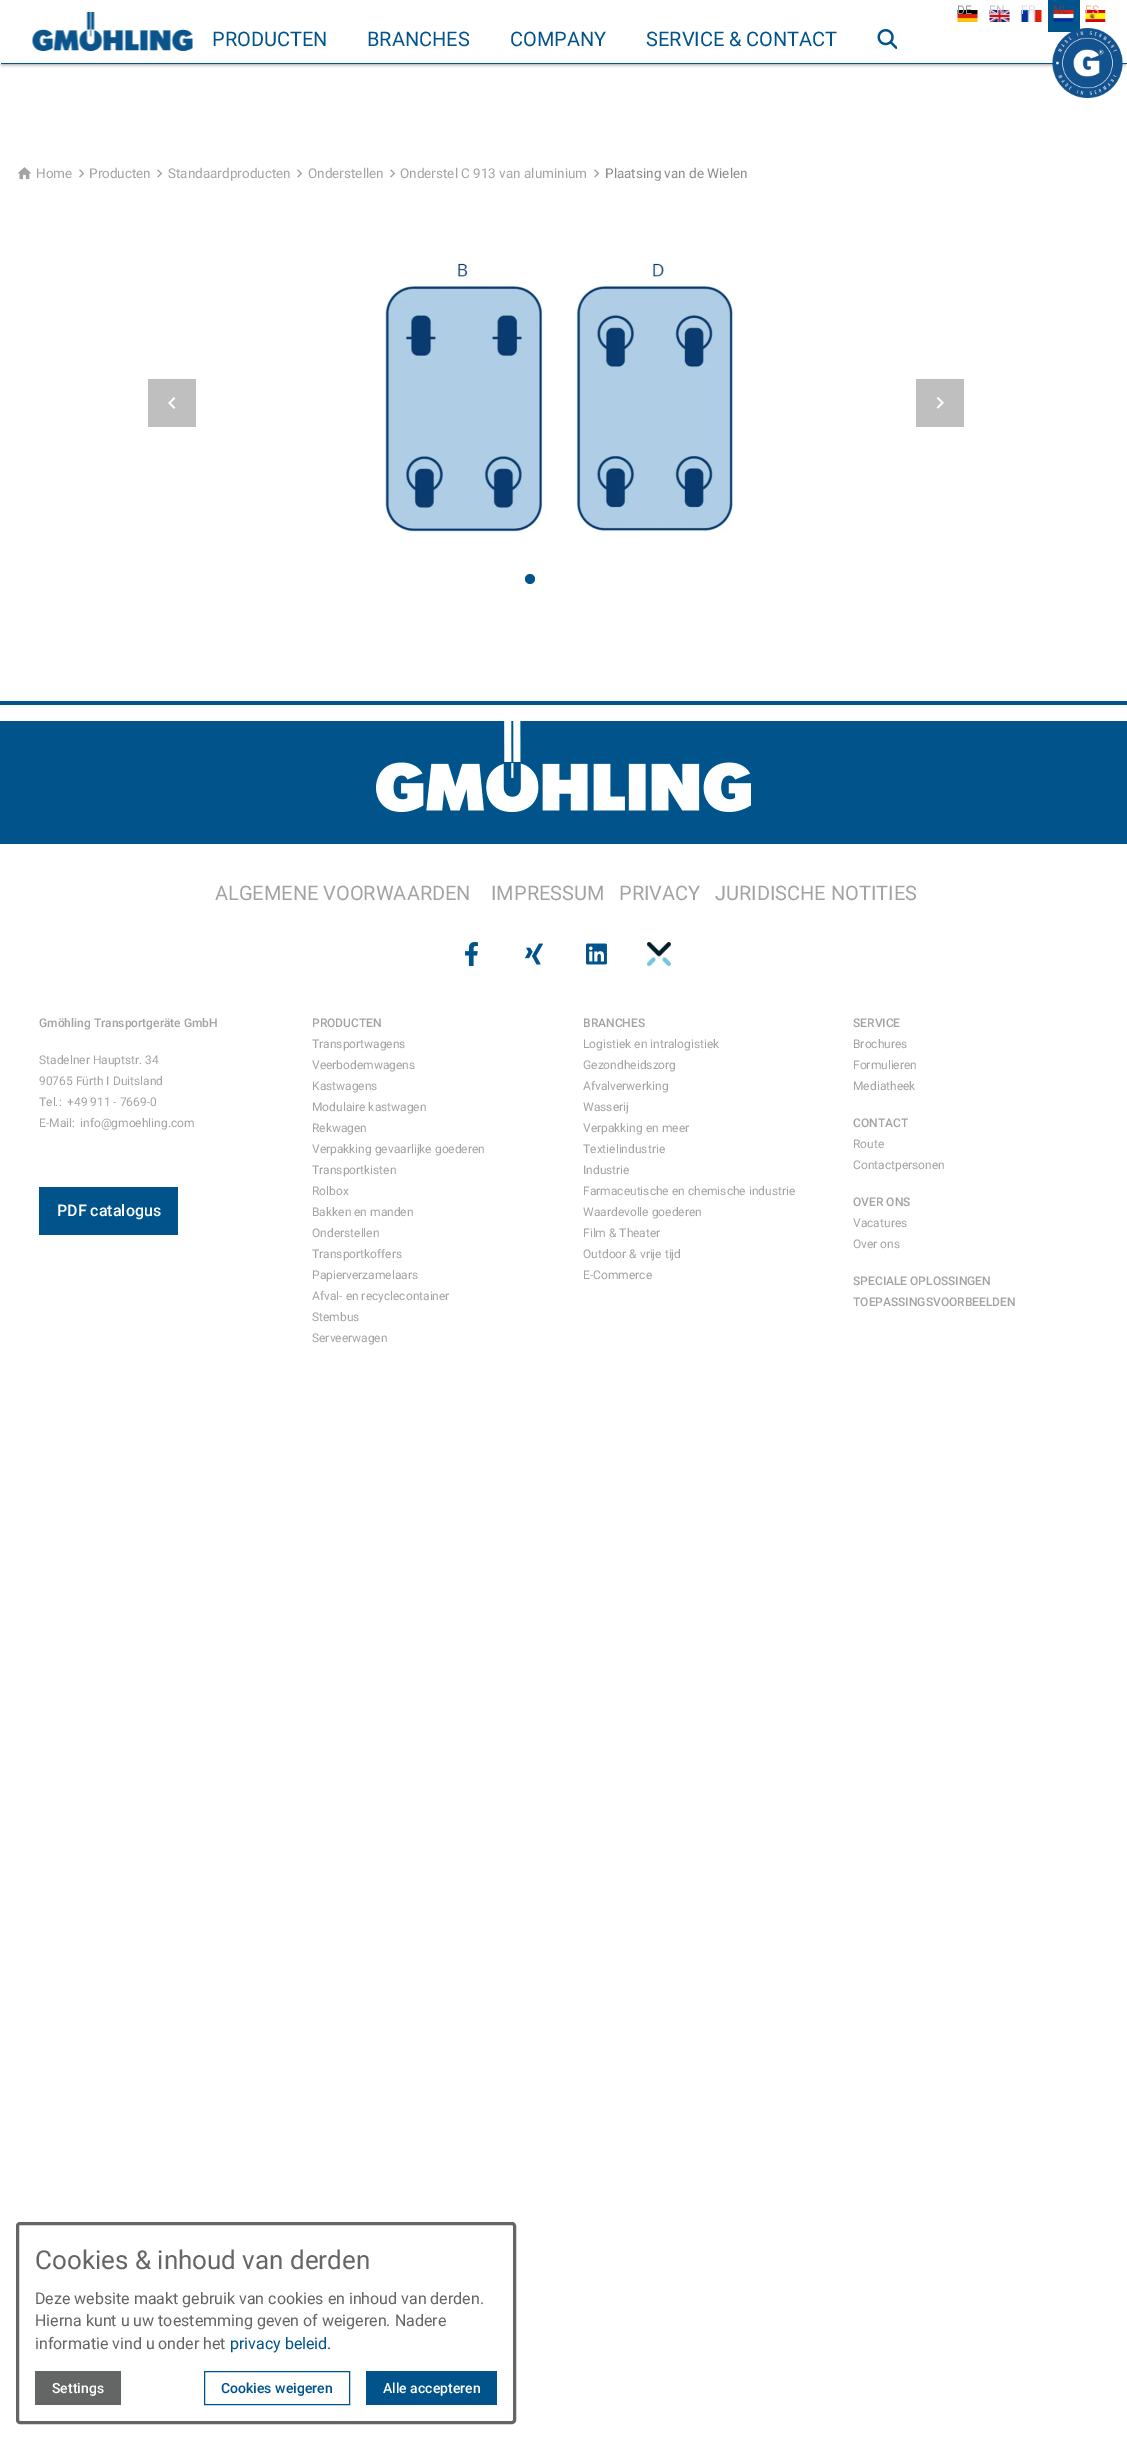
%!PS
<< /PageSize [1127 2440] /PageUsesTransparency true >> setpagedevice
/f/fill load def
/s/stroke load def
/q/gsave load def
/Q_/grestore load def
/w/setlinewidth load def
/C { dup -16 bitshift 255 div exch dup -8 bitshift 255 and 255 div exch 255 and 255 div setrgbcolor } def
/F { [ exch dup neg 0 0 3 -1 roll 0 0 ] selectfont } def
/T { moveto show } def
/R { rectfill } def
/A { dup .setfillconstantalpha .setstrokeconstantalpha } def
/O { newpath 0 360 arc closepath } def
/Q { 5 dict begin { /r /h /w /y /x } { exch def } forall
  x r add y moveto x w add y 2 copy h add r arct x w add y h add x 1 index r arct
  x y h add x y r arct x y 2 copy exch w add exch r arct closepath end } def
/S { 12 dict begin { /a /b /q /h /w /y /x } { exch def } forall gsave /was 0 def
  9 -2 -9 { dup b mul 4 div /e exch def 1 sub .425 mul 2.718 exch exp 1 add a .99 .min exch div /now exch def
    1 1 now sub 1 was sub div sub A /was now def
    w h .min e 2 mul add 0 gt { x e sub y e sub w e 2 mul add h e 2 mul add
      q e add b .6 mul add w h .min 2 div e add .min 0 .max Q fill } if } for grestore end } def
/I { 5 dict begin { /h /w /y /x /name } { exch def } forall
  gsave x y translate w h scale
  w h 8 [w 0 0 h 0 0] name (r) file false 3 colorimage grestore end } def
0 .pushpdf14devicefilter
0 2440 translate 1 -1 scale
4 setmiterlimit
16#FFFFFF C
0 0 1127 2440 R
q
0 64 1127 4 rectclip
16#646565 C
2 4 1123 60 0 2 1 S
Q_
16#00538B C
1 63 1126 1 R
(1.rgb) 957 10 21 12 I
/Roboto-Regular 12 F
16#949393 C
(DE) 957 14 T
(2.rgb) 989 10 21 12 I
16#C2BBCF C
(EN) 989 14 T
(3.rgb) 1021 10 21 12 I
16#D7DDED C
(FR) 1021 14 T
16#00538B C
1048 0 32 32 R
(4.rgb) 1053 10 21 12 I
16#6E3C50 C
(NL) 1053 14 T
(5.rgb) 1085 10 21 12 I
16#F2B595 C
(ES) 1085 14 T
(6.rgb) 32 12 161 39 I
/Roboto-Regular 20 F
16#00538B C
(PRODUCTEN) 212 46 T
(BRANCHES) 367 46 T
(COMPANY) 510 46 T
(SERVICE & CONTACT) 646 46 T
(7.rgb) 877 29 20 20 I
(8.rgb) 1052 28 71 70 I
(9.rgb) 17 167 15 13 I
/Roboto-Regular 13.5 F
16#A3A3A3 C
(Home) 36 178 T
(10.rgb) 79 169 6 9 I
(Producten) 89 178 T
(10.rgb) 157 169 6 9 I
(Standaardproducten) 168 178 T
(10.rgb) 297 169 6 9 I
(Onderstellen) 308 178 T
(10.rgb) 390 169 6 9 I
(Onderstel C 913 van aluminium) 400 178 T
(10.rgb) 594 169 6 9 I
16#898A8C C
(Plaatsing van de Wielen) 605 178 T
16#BFBFBF C
148 379 48 48 R
(11.rgb) 168 397 8 12 I
(12.rgb) 385 260 349 273 I
916 379 48 48 R
(13.rgb) 936 397 8 12 I
16#00538B C
530 579 5 O f
0 701 1127 4 R
0 721 1127 123 R
(14.rgb) 376 721 375 91 I
/Roboto-Regular 20 F
16#A3A3A3 C
(ALGEMENE VOORWAARDEN) 215 900 T
(IMPRESSUM) 491 900 T
(PRIVACY) 619 900 T
(JURIDISCHE NOTITIES) 715 900 T
(15.rgb) 465 942 13 24 I
(16.rgb) 525 943 18 22 I
(17.rgb) 586 943 21 22 I
(18.rgb) 647 942 24 24 I
/Roboto-Medium 12 F
(Gmöhling Transportgeräte GmbH) 39 1027 T
/Roboto-Regular 12 F
(Stadelner Hauptstr. 34) 39 1064 T
(90765 Fürth I Duitsland) 39 1085 T
(Tel.:) 39 1106 T
(+49 911 - 7669-0) 67 1106 T
(E-Mail:) 39 1127 T
(info@gmoehling.com) 80 1127 T
16#00538B C
39 1187 139 48 R
/Roboto-Medium 16 F
16#FFFFFF C
(PDF catalogus) 57 1216 T
/Roboto-Medium 12 F
16#A3A3A3 C
(PRODUCTEN) 312 1027 T
/Roboto-Regular 12 F
(Transportwagens) 312 1048 T
(Veerbodemwagens) 312 1069 T
(Kastwagens) 312 1090 T
(Modulaire kastwagen) 312 1111 T
(Rekwagen) 312 1132 T
(Verpakking gevaarlijke goederen) 312 1153 T
(Transportkisten) 312 1174 T
(Rolbox) 312 1195 T
(Bakken en manden) 312 1216 T
(Onderstellen) 312 1237 T
(Transportkoffers) 312 1258 T
(Papierverzamelaars) 312 1279 T
(Afval- en recyclecontainer) 312 1300 T
(Stembus) 312 1321 T
(Serveerwagen) 312 1342 T
/Roboto-Medium 12 F
(BRANCHES) 583 1027 T
/Roboto-Regular 12 F
(Logistiek en intralogistiek) 583 1048 T
(Gezondheidszorg) 583 1069 T
(Afvalverwerking) 583 1090 T
(Wasserij) 583 1111 T
(Verpakking en meer) 583 1132 T
(Textielindustrie) 583 1153 T
(Industrie) 583 1174 T
(Farmaceutische en chemische industrie) 583 1195 T
(Waardevolle goederen) 583 1216 T
(Film & Theater) 583 1237 T
(Outdoor & vrije tijd) 583 1258 T
(E-Commerce) 583 1279 T
/Roboto-Medium 12 F
(SERVICE) 853 1027 T
/Roboto-Regular 12 F
(Brochures) 853 1048 T
(Formulieren) 853 1069 T
(Mediatheek) 853 1090 T
/Roboto-Medium 12 F
(CONTACT) 853 1127 T
/Roboto-Regular 12 F
(Route) 853 1148 T
(Contactpersonen) 853 1169 T
/Roboto-Medium 12 F
(OVER ONS) 853 1206 T
/Roboto-Regular 12 F
(Vacatures) 853 1227 T
(Over ons) 853 1248 T
/Roboto-Medium 12 F
(SPECIALE OPLOSSINGEN) 853 1285 T
(TOEPASSINGSVOORBEELDEN) 853 1306 T
16#646565 C
3 w
17.5 2223.5 497 199 2.5 Q s
/Roboto-Regular 26 F
(Cookies & inhoud van derden) 35 2269 T
/Roboto-Regular 16 F
(Deze website maakt gebruik van cookies en inhoud van derden.) 35 2304 T
(Hierna kunt u uw toestemming geven of weigeren. Nadere) 35 2326 T
(informatie vind u onder het) 35 2349 T
16#00538B C
(privacy beleid.) 230 2349 T
16#646565 C
35 2371 86 34 R
/Roboto-Medium 14 F
16#FFFFFF C
(Settings) 52 2393 T
16#00538B C
1 w
204.5 2371.5 145 33 rectstroke
(Cookies weigeren) 221 2393 T
366 2371 131 34 R
16#FFFFFF C
(Alle accepteren) 383 2393 T
.poppdf14devicefilter showpage
